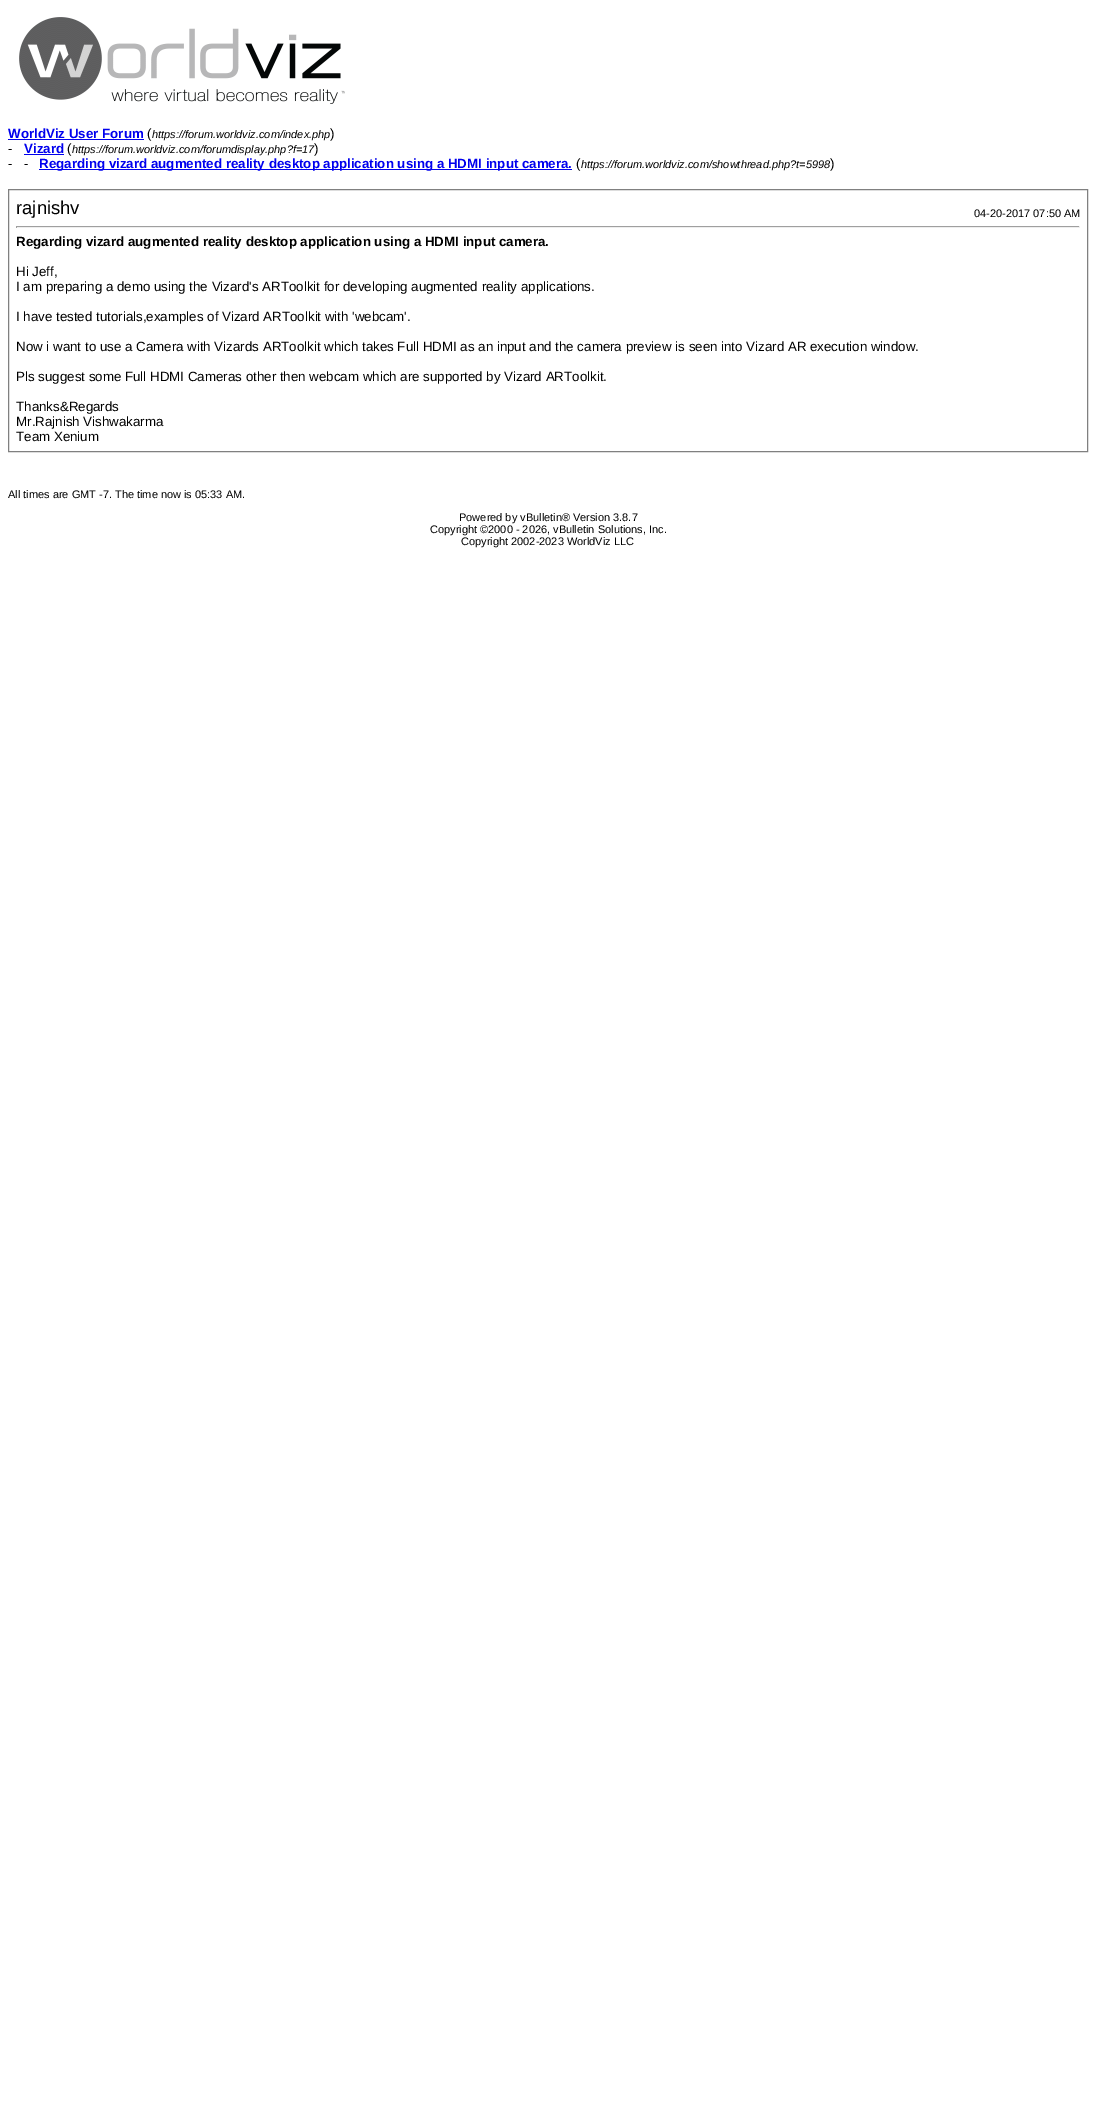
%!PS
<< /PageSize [1096 2116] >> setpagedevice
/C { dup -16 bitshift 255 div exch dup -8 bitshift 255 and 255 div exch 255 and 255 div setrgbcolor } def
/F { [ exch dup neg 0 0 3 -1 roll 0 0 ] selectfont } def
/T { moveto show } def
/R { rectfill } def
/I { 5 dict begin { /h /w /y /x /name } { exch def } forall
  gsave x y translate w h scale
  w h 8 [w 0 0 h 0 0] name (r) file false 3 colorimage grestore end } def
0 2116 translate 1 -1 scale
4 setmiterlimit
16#FFFFFF C
0 0 1096 2116 R
(1.rgb) 19 17 326 87 I
/LiberationSans-Bold 13.33 F
16#0000EE C
(WorldViz User Forum) 8 138 T
8 139 136 1 R
/LiberationSans-Regular 13.33 F
16#000000 C
(\() 147 138 T
/LiberationSans-Italic 11 F
(https://forum.worldviz.com/index.php) 152 138 T
/LiberationSans-Regular 13.33 F
(\)) 330 138 T
(-) 8 153 T
/LiberationSans-Bold 13.33 F
16#0000EE C
(Vizard) 24 153 T
24 154 40 1 R
/LiberationSans-Regular 13.33 F
16#000000 C
(\() 67 153 T
/LiberationSans-Italic 11 F
(https://forum.worldviz.com/forumdisplay.php?f=17) 72 153 T
/LiberationSans-Regular 13.33 F
(\)) 314 153 T
(-   -) 8 168 T
16#0000EE C
39 169 533 1 R
/LiberationSans-Bold 13.33 F
(Regarding vizard augmented reality desktop application using a HDMI input camera.) 39 168 T
/LiberationSans-Regular 13.33 F
16#000000 C
(\() 576 168 T
/LiberationSans-Italic 11 F
(https://forum.worldviz.com/showthread.php?t=5998) 581 168 T
/LiberationSans-Regular 13.33 F
(\)) 830 168 T
16#808080 C
8.5 189.5 1079 262 rectstroke
/LiberationSans-Regular 18.5 F
16#000000 C
(rajnishv) 16 214 T
/LiberationSans-Regular 11 F
(04-20-2017 07:50 AM) 974 217 T
16#9F9F9F C
16 226 1064 1 R
16#EEEEEE C
1079 226 1 2 R
16 227 1064 1 R
16#9F9F9F C
16 226 1 2 R
/LiberationSans-Bold 13.33 F
16#000000 C
(Regarding vizard augmented reality desktop application using a HDMI input camera.) 16 246 T
/LiberationSans-Regular 13.33 F
(Hi Jeff,) 16 276 T
(I am preparing a demo using the Vizard's ARToolkit for developing augmented reality applications.) 16 291 T
(I have tested tutorials,examples of Vizard ARToolkit with 'webcam'.) 16 321 T
(Now i want to use a Camera with Vizards ARToolkit which takes Full HDMI as an input and the camera preview is seen into Vizard AR execution window.) 16 351 T
(Pls suggest some Full HDMI Cameras other then webcam which are supported by Vizard ARToolkit.) 16 381 T
(Thanks&Regards) 16 411 T
(Mr.Rajnish Vishwakarma) 16 426 T
(Team Xenium) 16 441 T
/LiberationSans-Regular 11 F
(All times are GMT -7. The time now is 05:33 AM.) 8 498 T
(Powered by vBulletin® Version 3.8.7) 459 521 T
(Copyright ©2000 - 2026, vBulletin Solutions, Inc.) 430 533 T
(Copyright 2002-2023 WorldViz LLC) 461 545 T
showpage
